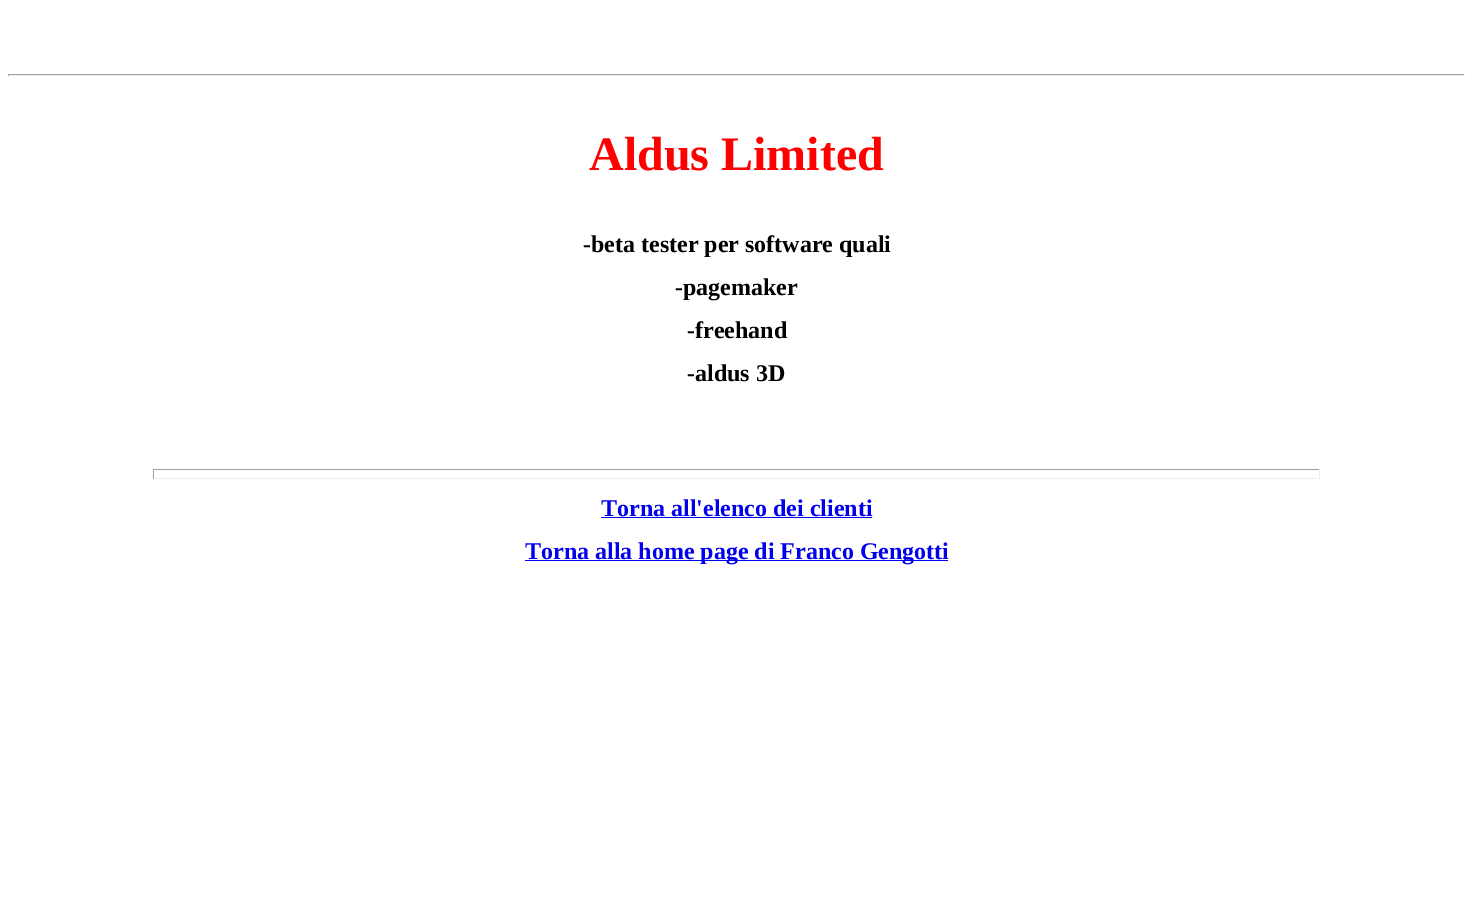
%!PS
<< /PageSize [1473 917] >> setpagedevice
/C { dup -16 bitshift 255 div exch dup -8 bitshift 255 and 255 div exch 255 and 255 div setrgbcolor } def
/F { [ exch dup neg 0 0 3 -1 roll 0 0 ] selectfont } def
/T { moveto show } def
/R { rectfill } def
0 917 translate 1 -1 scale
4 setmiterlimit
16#FFFFFF C
0 0 1473 917 R
16#9F9F9F C
8 74 1457 1 R
16#EEEEEE C
1464 74 1 2 R
8 75 1457 1 R
16#9F9F9F C
8 74 1 2 R
/LiberationSerif-Bold 48 F
16#FF0000 C
(Aldus Limited) 589 170 T
/LiberationSerif-Bold 24 F
16#000000 C
(-beta tester per software quali) 583 252 T
(-pagemaker) 675 295 T
(-freehand) 687 338 T
(-aldus 3D) 687 381 T
16#9F9F9F C
153 469 1167 1 R
16#EEEEEE C
1319 469 1 10 R
153 478 1167 1 R
16#9F9F9F C
153 469 1 10 R
16#0000EE C
(Torna all'elenco dei clienti) 601 516 T
601 517 271 1 R
525 560 423 1 R
(Torna alla home page di Franco Gengotti) 525 559 T
showpage
